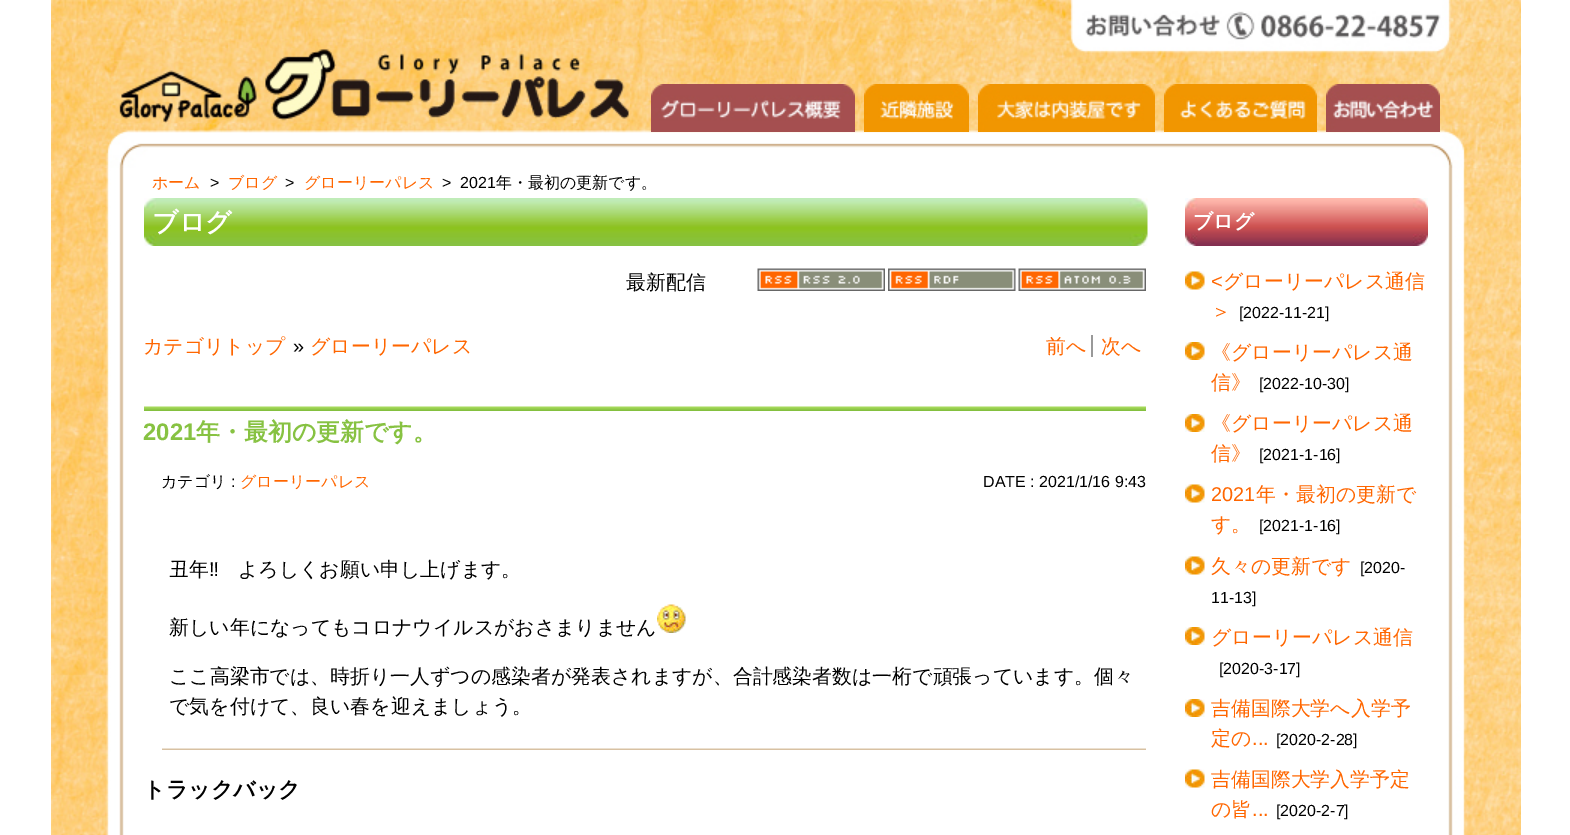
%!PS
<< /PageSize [1570 835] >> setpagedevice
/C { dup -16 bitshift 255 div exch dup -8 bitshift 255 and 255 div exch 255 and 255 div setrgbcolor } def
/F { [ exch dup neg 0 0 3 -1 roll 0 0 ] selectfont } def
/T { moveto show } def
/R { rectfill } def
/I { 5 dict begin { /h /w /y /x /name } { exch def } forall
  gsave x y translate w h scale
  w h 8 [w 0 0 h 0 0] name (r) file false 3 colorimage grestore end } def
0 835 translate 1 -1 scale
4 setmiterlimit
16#FFFFFF C
0 0 1570 835 R
(1.rgb) 51 0 1470 168 I
(2.rgb) 117 48 513 75 I
(3.rgb) 651 84 204 48 I
(4.rgb) 864 84 105 48 I
(5.rgb) 978 84 177 48 I
(6.rgb) 1164 84 153 48 I
(7.rgb) 1326 84 114 48 I
(8.rgb) 51 168 1470 667 I
/WenQuanYiZenHei-Medium 16 F
16#FF6600 C
(ホーム) 152 188 T
/LiberationSans-Regular 16 F
16#000000 C
(>) 210 188 T
/WenQuanYiZenHei-Medium 16 F
16#FF6600 C
(ブログ) 228 188 T
/LiberationSans-Regular 16 F
16#000000 C
(>) 285 188 T
/WenQuanYiZenHei-Medium 16 F
16#FF6600 C
(グローリーパレス) 304 188 T
/LiberationSans-Regular 16 F
16#000000 C
(>) 442 188 T
(2021) 460 188 T
/WenQuanYiZenHei-Medium 16 F
(年・最初の更新です。) 496 188 T
(9.rgb) 144 198 1004 48 I
/WenQuanYiZenHei-Bold 26 F
16#FFFFFF C
(ブログ) 152 231 T
/WenQuanYiZenHei-Medium 19.9 F
16#000000 C
(最新配信) 626 289 T
(10.rgb) 757 268 128 23 I
(11.rgb) 888 268 128 23 I
(12.rgb) 1018 268 128 23 I
16#FF6600 C
(カテゴリトップ) 143 353 T
/LiberationSans-Regular 19.9 F
16#000000 C
(») 293 353 T
/WenQuanYiZenHei-Medium 19.9 F
16#FF6600 C
(グローリーパレス) 310 353 T
(前へ) 1046 353 T
16#999999 C
1091 335 2 22 R
16#FF6600 C
(次へ) 1101 353 T
(13.rgb) 144 406 1002 5 I
/LiberationSans-Bold 23.9 F
16#87C242 C
(2021) 143 440 T
/WenQuanYiZenHei-Bold 23.9 F
(年・最初の更新です。) 196 440 T
/WenQuanYiZenHei-Medium 16 F
16#000000 C
(カテゴリ) 161 487 T
/LiberationSans-Regular 16 F
(:) 231 487 T
/WenQuanYiZenHei-Medium 16 F
16#FF6600 C
(グローリーパレス) 240 487 T
/LiberationSans-Regular 16 F
16#000000 C
(DATE : 2021/1/16 9:43) 983 487 T
(14.rgb) 162 748 984 2 I
/WenQuanYiZenHei-Medium 19.9 F
(丑年) 169 576 T
/LiberationSans-Regular 19.9 F
(‼) 209 576 T
/WenQuanYiZenHei-Medium 19.9 F
(よろしくお願い申し上げます。) 238 576 T
(新しい年になってもコロナウイルスがおさまりません) 169 634 T
(15.rgb) 657 604 29 29 I
(ここ高梁市では、時折り一人ずつの感染者が発表されますが、合計感染者数は一桁で頑張っています。個々) 169 683 T
(で気を付けて、良い春を迎えましょう。) 169 713 T
/WenQuanYiZenHei-Bold 22 F
(トラックバック) 143 797 T
(16.rgb) 1185 198 243 48 I
/WenQuanYiZenHei-Bold 19.9 F
16#FFFFFF C
(ブログ) 1193 228 T
(17.rgb) 1185 271 20 19 I
/LiberationSans-Regular 19.9 F
16#FF6600 C
(<) 1211 288 T
/WenQuanYiZenHei-Medium 19.9 F
(グローリーパレス通信) 1223 288 T
(＞) 1211 318 T
/LiberationSans-Regular 16 F
16#000000 C
([2022-11-21]) 1239 318 T
(18.rgb) 1185 342 20 18 I
/WenQuanYiZenHei-Medium 19.9 F
16#FF6600 C
(《グローリーパレス通) 1211 359 T
(信》) 1211 389 T
/LiberationSans-Regular 16 F
16#000000 C
([2022-10-30]) 1259 389 T
(18.rgb) 1185 414 20 18 I
/WenQuanYiZenHei-Medium 19.9 F
16#FF6600 C
(《グローリーパレス通) 1211 430 T
(信》) 1211 460 T
/LiberationSans-Regular 16 F
16#000000 C
([2021-1-16]) 1259 460 T
(17.rgb) 1185 484 20 19 I
/LiberationSans-Regular 19.9 F
16#FF6600 C
(2021) 1211 501 T
/WenQuanYiZenHei-Medium 19.9 F
(年・最初の更新で) 1256 501 T
(す。) 1211 531 T
/LiberationSans-Regular 16 F
16#000000 C
([2021-1-16]) 1259 531 T
(17.rgb) 1185 556 20 19 I
/WenQuanYiZenHei-Medium 19.9 F
16#FF6600 C
(久々の更新です) 1211 573 T
/LiberationSans-Regular 16 F
16#000000 C
([2020-) 1360 573 T
(11-13]) 1211 603 T
(18.rgb) 1185 627 20 18 I
/WenQuanYiZenHei-Medium 19.9 F
16#FF6600 C
(グローリーパレス通信) 1211 644 T
/LiberationSans-Regular 16 F
16#000000 C
([2020-3-17]) 1219 674 T
(18.rgb) 1185 699 20 18 I
/WenQuanYiZenHei-Medium 19.9 F
16#FF6600 C
(吉備国際大学へ入学予) 1211 715 T
(定の) 1211 745 T
/LiberationSans-Regular 19.9 F
(...) 1252 745 T
/LiberationSans-Regular 16 F
16#000000 C
([2020-2-28]) 1276 745 T
(17.rgb) 1185 769 20 19 I
/WenQuanYiZenHei-Medium 19.9 F
16#FF6600 C
(吉備国際大学入学予定) 1211 786 T
(の皆) 1211 816 T
/LiberationSans-Regular 19.9 F
(...) 1252 816 T
/LiberationSans-Regular 16 F
16#000000 C
([2020-2-7]) 1276 816 T
showpage
